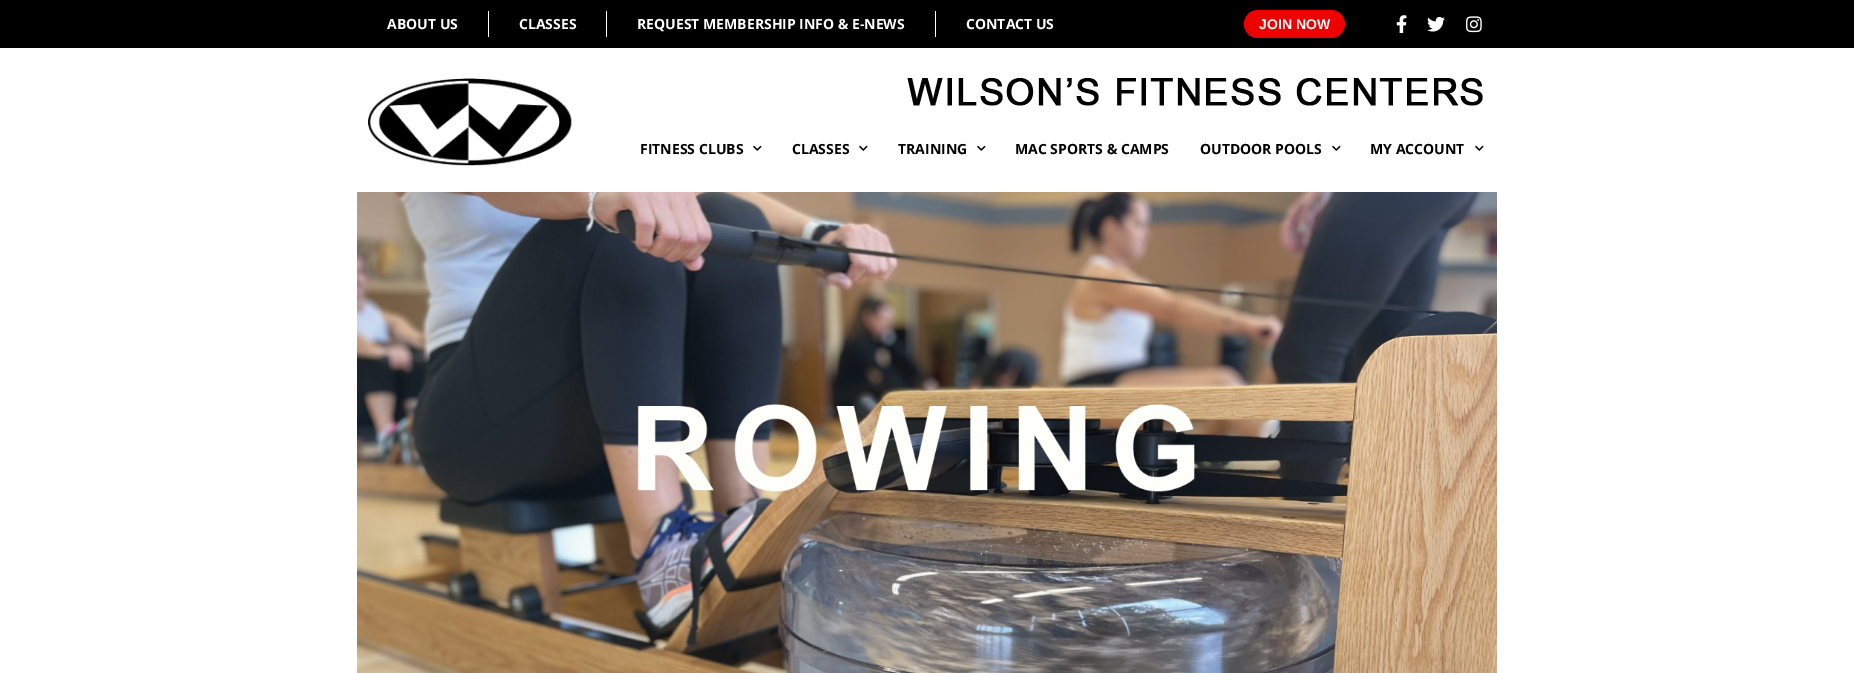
%!PS
<< /PageSize [1854 673] >> setpagedevice
/f/fill load def
/C { dup -16 bitshift 255 div exch dup -8 bitshift 255 and 255 div exch 255 and 255 div setrgbcolor } def
/F { [ exch dup neg 0 0 3 -1 roll 0 0 ] selectfont } def
/T { moveto show } def
/R { rectfill } def
/Q { 5 dict begin { /r /h /w /y /x } { exch def } forall
  x r add y moveto x w add y 2 copy h add r arct x w add y h add x 1 index r arct
  x y h add x y r arct x y 2 copy exch w add exch r arct closepath end } def
/I { 5 dict begin { /h /w /y /x /name } { exch def } forall
  gsave x y translate w h scale
  w h 8 [w 0 0 h 0 0] name (r) file false 3 colorimage grestore end } def
0 673 translate 1 -1 scale
4 setmiterlimit
16#FFFFFF C
0 0 1854 673 R
16#000000 C
0 0 1854 48 R
16#FFFFFF C
488 11 1 26 R
/OpenSans-Bold 14 F
(ABOUT US) 387 29 T
606 11 1 26 R
(CLASSES) 519 29 T
935 11 1 26 R
(REQUEST MEMBERSHIP INFO & E-NEWS) 637 29 T
(CONTACT US) 966 29 T
16#EE0000 C
1244 10 101 28 14 Q f
/LiberationSans-Bold 14 F
16#FFFFFF C
(JOIN NOW) 1259 29 T
(1.rgb) 1396 15 11 18 I
(2.rgb) 1427 16 18 16 I
(3.rgb) 1466 16 16 17 I
(4.rgb) 368 78 204 88 I
(5.rgb) 907 78 576 28 I
/OpenSans-Bold 14 F
16#000000 C
(FITNESS CLUBS) 640 154 T
(6.rgb) 753 145 9 6 I
(CLASSES) 792 154 T
(6.rgb) 859 145 9 6 I
(TRAINING) 898 154 T
(6.rgb) 977 145 9 6 I
(MAC SPORTS & CAMPS) 1015 154 T
(OUTDOOR POOLS) 1200 154 T
(6.rgb) 1332 145 9 6 I
(MY ACCOUNT) 1370 154 T
(6.rgb) 1475 145 9 6 I
(7.rgb) 357 192 1140 481 I
showpage
